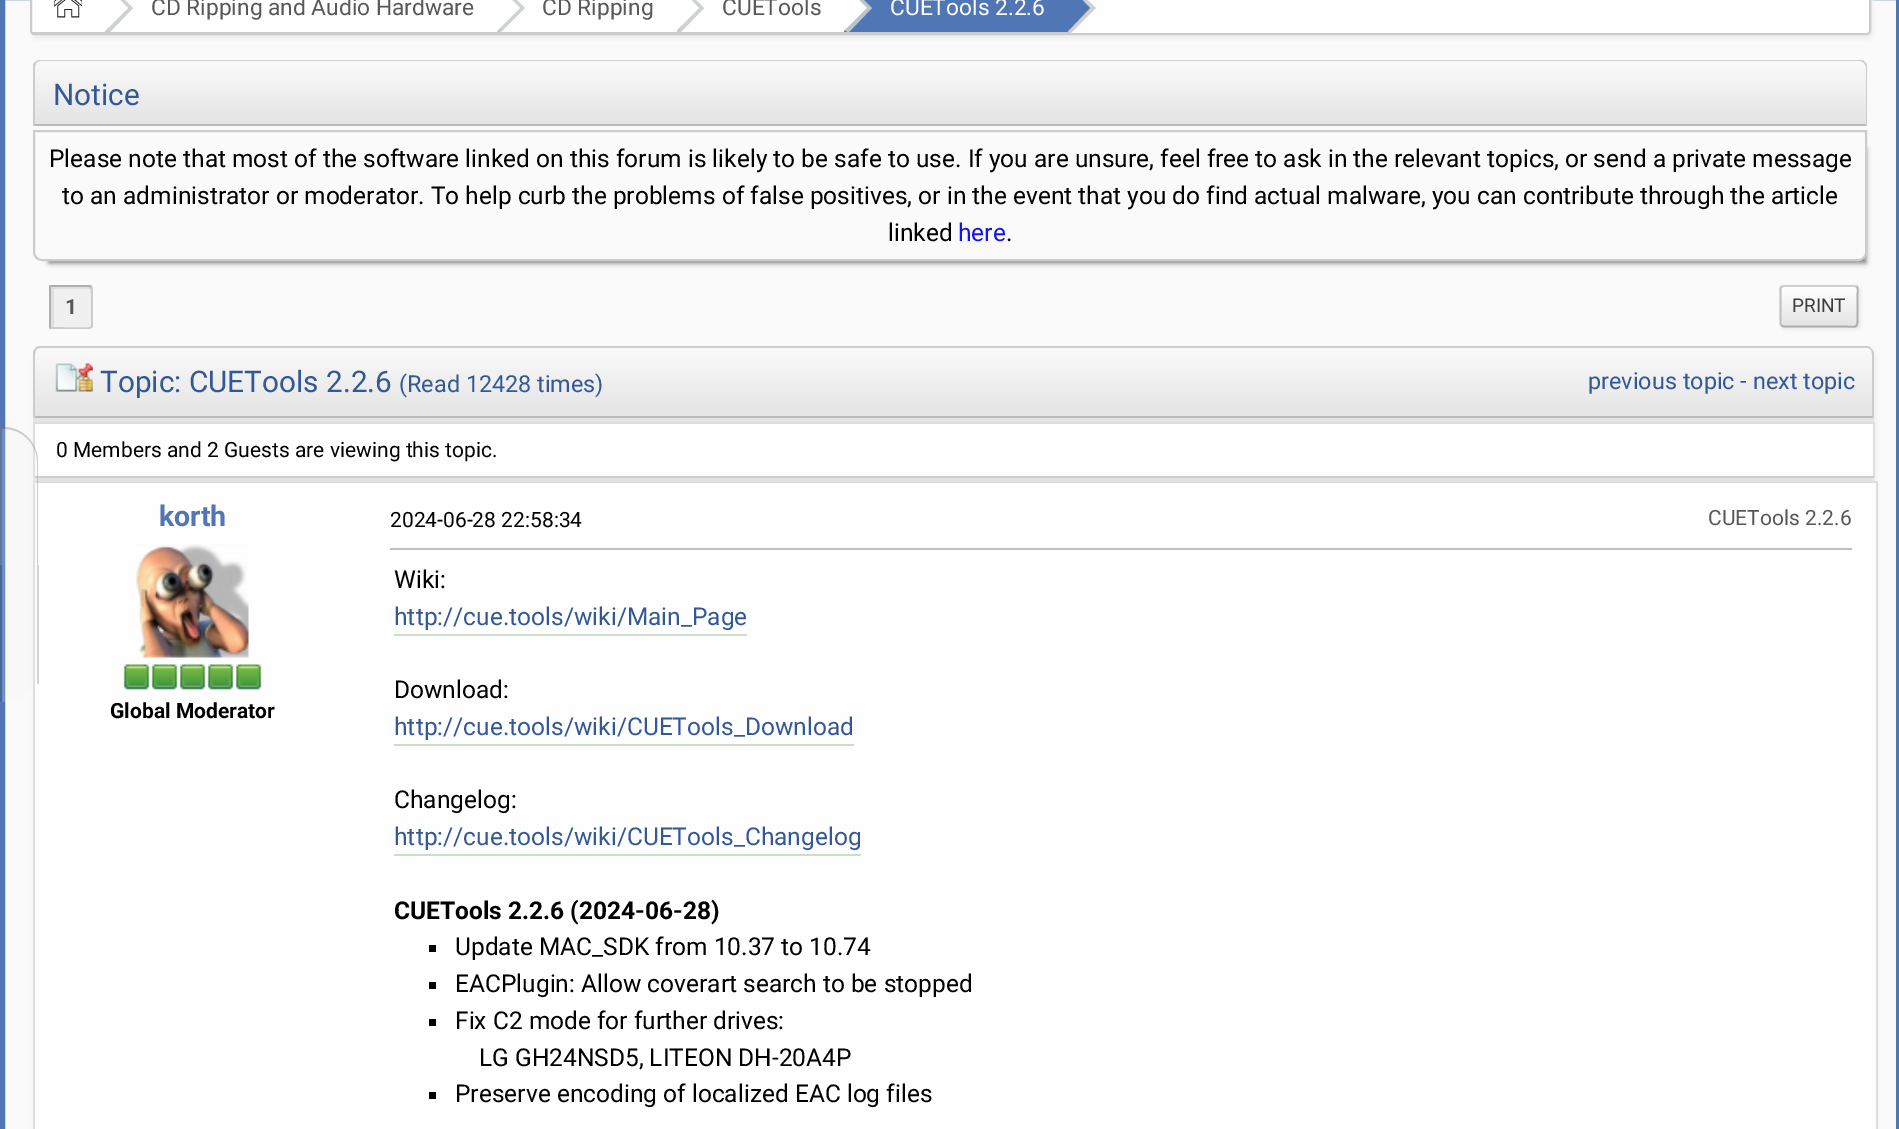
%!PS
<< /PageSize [1899 1129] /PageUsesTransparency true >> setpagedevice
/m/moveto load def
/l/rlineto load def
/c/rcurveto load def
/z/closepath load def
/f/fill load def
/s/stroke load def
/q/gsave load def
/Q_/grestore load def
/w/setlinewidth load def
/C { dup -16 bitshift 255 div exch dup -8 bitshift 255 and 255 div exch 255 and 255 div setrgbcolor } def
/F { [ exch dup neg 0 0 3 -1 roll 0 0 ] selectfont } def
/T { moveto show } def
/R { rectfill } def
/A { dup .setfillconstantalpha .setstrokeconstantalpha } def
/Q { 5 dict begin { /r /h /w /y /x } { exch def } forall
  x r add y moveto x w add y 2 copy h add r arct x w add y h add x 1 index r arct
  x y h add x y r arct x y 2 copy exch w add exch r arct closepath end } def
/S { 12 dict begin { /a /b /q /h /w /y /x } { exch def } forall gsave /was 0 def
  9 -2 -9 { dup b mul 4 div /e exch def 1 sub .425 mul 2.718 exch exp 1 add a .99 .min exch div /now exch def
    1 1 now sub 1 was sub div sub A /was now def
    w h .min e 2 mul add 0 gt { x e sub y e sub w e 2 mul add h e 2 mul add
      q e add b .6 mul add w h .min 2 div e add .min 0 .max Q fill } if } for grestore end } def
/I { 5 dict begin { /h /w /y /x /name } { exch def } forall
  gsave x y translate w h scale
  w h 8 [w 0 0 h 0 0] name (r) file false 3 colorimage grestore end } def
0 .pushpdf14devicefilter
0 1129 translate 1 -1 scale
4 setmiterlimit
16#FAFAFA C
0 0 1899 1129 R
16#5176B5 C
5 w
2.5 -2.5 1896 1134 rectstroke
16#EEEEEE C
35 350 1841 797 7 3.5 1 S
16#E4E4E4 C
40 347 m 1827 0 l 4 0 7 3 7 7 c 0 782 l -1841 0 l 0 -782 l 0 -4 3 -7 7 -7 c z f
16#FEFEFE C
35 424 1838 52 R
16#DDDDDD C
33 422 1841 2 R
1873 422 2 56 R
16#CCCCCC C
33 476 1841 2 R
16#DDDDDD C
33 422 2 56 R
16#FEFEFE C
35 483 1841 646 R
16#DDDDDD C
33 481 1845 2 R
33 481 2 648 R
0.2 A
16#EEEEEE C
0 427 m 4 0 l 19.5 0 35 15.5 35 35 c 0 103 l -39 0 l z f
16#222222 C
0 427 m 4 0 l 19 0 34 16 34 35 c 0 103 l -38 0 l z 2 429 m 2 0 l 18 0 33 15 33 33 c 0 103 l -35 0 l z eofill
1 A
16#EEEEEE C
32 -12 1841 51 4 2.5 1 S
16#FEFEFE C
31 -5 1839 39 3 Q q f Q_
16#CCCCCC C
2 w
s
105 27 4 6 R
32 32 465 1 R
(1.rgb) 54 0 28 18 I
0.9 A
16#C8CCCC C
111 -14 m -4 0 l 21 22 l -22 22 l 3 3 l 24 -25 l z f
1 A
16#FEFEFE C
106 -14 m 22 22 l -23 23 l -22 -23 l 21 -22 l z f
16#CCCCCC C
497 27 4 6 R
/Roboto-Regular 22.75 F
16#585858 C
(CD Ripping and Audio Hardware) 151 15 T
16#CCCCCC C
677 26 4 7 R
497 32 571 1 R
0.9 A
16#C8CCCC C
502 -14 m -4 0 l 22 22 l -23 22 l 3 3 l 25 -25 l z f
1 A
16#FEFEFE C
498 -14 m 22 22 l -23 23 l -23 -23 l 22 -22 l z f
16#585858 C
(CD Ripping) 542 15 T
0.9 A
16#C8CCCC C
682 -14 m -4 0 l 21 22 l -22 22 l 3 3 l 24 -25 l z f
1 A
16#FEFEFE C
677 -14 m 22 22 l -23 23 l -22 -23 l 21 -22 l z f
16#585858 C
(CUETools) 722 15 T
16#5176B5 C
844 0 224 32 R
0.9 A
16#C8CCCC C
850 -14 m -4 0 l -1 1 l 22 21 l -22 22 l 3 3 l 24 -25 l z f
1 A
16#FEFEFE C
845 -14 m 22 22 l -23 23 l -23 -23 l 22 -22 l z f
16#CCCCCC C
1068 27 3 6 R
16#FEFEFE C
(CUETools 2.2.6) 890 15 T
0.9 A
16#C8CCCC C
1073 -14 m -4 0 l 21 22 l -22 22 l 3 3 l 25 -25 l z f
1 A
16#5176B5 C
1069 -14 m 21 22 l -22 23 l -23 -23 l 22 -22 l z f
q
40 60 m 1820 0 l 4 0 7 3 7 7 c 0 59 l -1834 0 l 0 -59 l 0 -4 3 -7 7 -7 c z clip newpath
q 33 60 m 1834 0 l 0 1 l -1834 0 l z clip newpath
<< /ShadingType 2 /ColorSpace /DeviceRGB /Coords [950 -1.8 950 61] /Extend [true true] /Function << /FunctionType 2 /Domain [0 1] /C0 [.98 .98 .98] /C1 [.894 .894 .894] /N 1 >> >> shfill Q_
q 33 61 m 1834 0 l 0 63 l -1834 0 l z clip newpath
<< /ShadingType 2 /ColorSpace /DeviceRGB /Coords [950 61 950 124] /Extend [true true] /Function << /FunctionType 2 /Domain [0 1] /C0 [.98 .98 .98] /C1 [.894 .894 .894] /N 1 >> >> shfill Q_
Q_
16#CFCFCF C
40 60 m -2 0 -3 1 -5 2 c 1 1 l 1 -1 3 -2 4 -2 c 1820 0 l 1 0 3 1 4 2 c 1 -1 l -1 -1 -3 -2 -5 -2 c z f
16#CCCCCC C
1867 126 m 0 -60 l 0 -2 -1 -3 -2 -4 c -1 1 l 2 3 l 0 58 l -1 0 l z f
16#BBBBBB C
33 126 m 1834 0 l -2 -2 l -1830 0 l z f
16#CCCCCC C
33 126 m 2 -2 l 0 -58 l 0 -1 1 -2 1 -3 c -1 -1 l -2 2 l z f
/Roboto-Regular 29.75 F
16#335897 C
(Notice) 53 105 T
q
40 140 m 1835 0 l 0 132 l -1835 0 l z 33 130 m 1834 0 l 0 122 l 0 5 -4 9 -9 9 c -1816 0 l -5 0 -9 -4 -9 -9 c z eoclip newpath
16#000000 C
49 149 1817 114 0 2.5 .5 S
Q_
16#CCCCCC C
34 131 m 1832 0 l 0 121 l 0 4.5 -3.5 8 -8 8 c -1816 0 l -4.5 0 -8 -3.5 -8 -8 c z s
/Roboto-Regular 24.5 F
16#000000 C
(Please note that most of the software linked on this forum is likely to be safe to use. If you are unsure, feel free to ask in the relevant topics, or send a private message) 49 167 T
(to an administrator or moderator. To help curb the problems of false positives, or in the event that you do find actual malware, you can contribute through the article) 62 204 T
(linked) 888 241 T
16#1111FF C
(here) 958 241 T
16#000000 C
(.) 1006 241 T
16#F0F0F0 C
49 285 m 40 0 l 2 0 4 2 4 4 c 0 36 l 0 2 -2 4 -4 4 c -40 0 l z f
16#DFDFDF C
54 289 m 37 0 l 0 -1 -1 -2 -2 -2 c -38 0 l 0 40 l 3 0 l z f
16#AFAFAF C
51 287 m -2 -2 l 41 0 l 2 1 l -2 2 l -1 -1 l z f
16#CCCCCC C
93 327 m -1 1 l -2 -1 l 1 -1 l 0 -5 1 -37 -1 -38 c 2 -2 l 1 2 l z f
89 329 m 3 -1 l -2 -1 l -2 1 -34 0 -39 0 c -2 2 l z f
16#AFAFAF C
49 329 m 2 -2 l 0 -40 l -2 -2 l z f
/Roboto-Bold 21 F
16#585858 C
(1) 65 314 T
16#E4E4E4 C
1782 287 78 42 4 2 1 S
q
1780 285 79 42 4 Q clip newpath
q 1780 285 m 79 0 l 0 2 l -79 0 l z clip newpath
<< /ShadingType 2 /ColorSpace /DeviceRGB /Coords [1819 249 1819 287] /Extend [true true] /Function << /FunctionType 2 /Domain [0 1] /C0 [.996 .996 .996] /C1 [.894 .894 .894] /N 1 >> >> shfill Q_
q 1780 287 m 79 0 l 0 39 l -79 0 l z clip newpath
<< /ShadingType 2 /ColorSpace /DeviceRGB /Coords [1819 287 1819 326] /Extend [true true] /Function << /FunctionType 2 /Domain [0 1] /C0 [.996 .996 .996] /C1 [.894 .894 .894] /N 1 >> >> shfill Q_
Q_
16#CFCFCF C
1.8 w
1781.5 287 m 2 -1 l 71.5 0 l 2 1 l s
16#AFAFAF C
1857 287 m 1.5 2 .5 6.5 .5 8 c 0 22.5 l 0 12 -1 9 -14.5 9 c -59.5 0 l -2 -1 l s
16#BFBFBF C
1781.5 325.5 m -.5 -.5 -1 -1.5 -1 -2 c 0 -34.5 l 0 -.5 .5 -1.5 1 -2 c s
/Roboto-Regular 19 F
16#3D3D3D C
(PRINT) 1792 312 T
q
40 347 m 1827 0 l 4 0 7 3 7 7 c 0 64 l -1841 0 l 0 -64 l 0 -4 3 -7 7 -7 c z clip newpath
q 33 348 m 1841 0 l 0 69 l -1841 0 l z clip newpath
<< /ShadingType 2 /ColorSpace /DeviceRGB /Coords [954 348 954 417] /Extend [true true] /Function << /FunctionType 2 /Domain [0 1] /C0 [.98 .98 .98] /C1 [.894 .894 .894] /N 1 >> >> shfill Q_
Q_
q 33 417 m 1841 0 l 0 1 l -1841 0 l z clip newpath
<< /ShadingType 2 /ColorSpace /DeviceRGB /Coords [954 416 954 485] /Extend [true true] /Function << /FunctionType 2 /Domain [0 1] /C0 [.98 .98 .98] /C1 [.894 .894 .894] /N 1 >> >> shfill Q_
16#CFCFCF C
40 348 m -1 0 -3 1 -4 2 c -1 -2 l 3 -2 l 1831 0 l 3 3 l -1 1 l -1 -1 -2 -2 -4 -2 c z f
16#CCCCCC C
1872 349 m 1 1 2 3 2 5 c 0 64 l -2 -2 l 0 -62 l 0 -1 0 -3 -1 -4 c z f
16#BBBBBB C
1874 418 m -2 -2 l -1836 0 l -2 2 l z f
16#CCCCCC C
33 352 m 2 -4 l 1 2 l 0 1 -1 2 -1 4 c 0 62 l 1 0 l -3 2 l z f
(2.rgb) 55 363 38 29 I
/Roboto-Regular 29.75 F
16#335897 C
(Topic: CUETools 2.2.6) 100 392 T
/Roboto-Regular 23.4 F
(\(Read 12428 times\)) 399 392 T
(previous topic - next topic) 1588 389 T
/Roboto-Regular 21 F
16#000000 C
(0 Members and 2 Guests are viewing this topic.) 56 457 T
16#DDDDDD C
1876 481 2 648 R
/Roboto-Bold 28.5 F
16#5176B5 C
(korth) 159 526 T
(3.rgb) 136 544 113 114 I
(4.rgb) 123 664 27 26 I
(5.rgb) 151 664 27 26 I
(5.rgb) 179 664 27 26 I
(5.rgb) 207 664 27 26 I
(4.rgb) 235 664 27 26 I
/Roboto-Bold 21 F
16#000000 C
(Global Moderator) 110 718 T
/Roboto-Regular 21 F
(2024-06-28 22:58:34) 390 527 T
16#585858 C
(CUETools 2.2.6) 1708 525 T
16#BFBFBF C
390 548 1462 2 R
/Roboto-Regular 24.5 F
16#000000 C
(Wiki:) 394 588 T
16#CEDCCB C
394 634 353 2 R
16#335897 C
(http://cue.tools/wiki/Main_Page) 394 625 T
16#000000 C
(Download:) 394 698 T
16#CEDCCB C
394 744 460 2 R
16#335897 C
(http://cue.tools/wiki/CUETools_Download) 394 735 T
16#000000 C
(Changelog:) 394 808 T
16#CEDCCB C
394 854 467 2 R
16#335897 C
(http://cue.tools/wiki/CUETools_Changelog) 394 845 T
/Roboto-Bold 24.5 F
16#000000 C
(CUETools 2.2.6 \(2024-06-28\)) 394 919 T
429 945 7 7 R
/Roboto-Regular 24.5 F
(Update MAC_SDK from 10.37 to 10.74) 455 955 T
429 982 7 7 R
(EACPlugin: Allow coverart search to be stopped) 455 992 T
429 1019 7 7 R
(Fix C2 mode for further drives:) 455 1029 T
(LG GH24NSD5, LITEON DH-20A4P) 479 1066 T
429 1092 7 7 R
(Preserve encoding of localized EAC log files) 455 1102 T
0.2 A
16#EEEEEE C
0 565 m 39 0 l 0 102 l 0 19.5 -15.5 35 -35 35 c -4 0 l z f
1 A
16#D2D2D2 C
37 565 2 119 R
16#486598 C
0 565 2 137 R
.poppdf14devicefilter showpage
